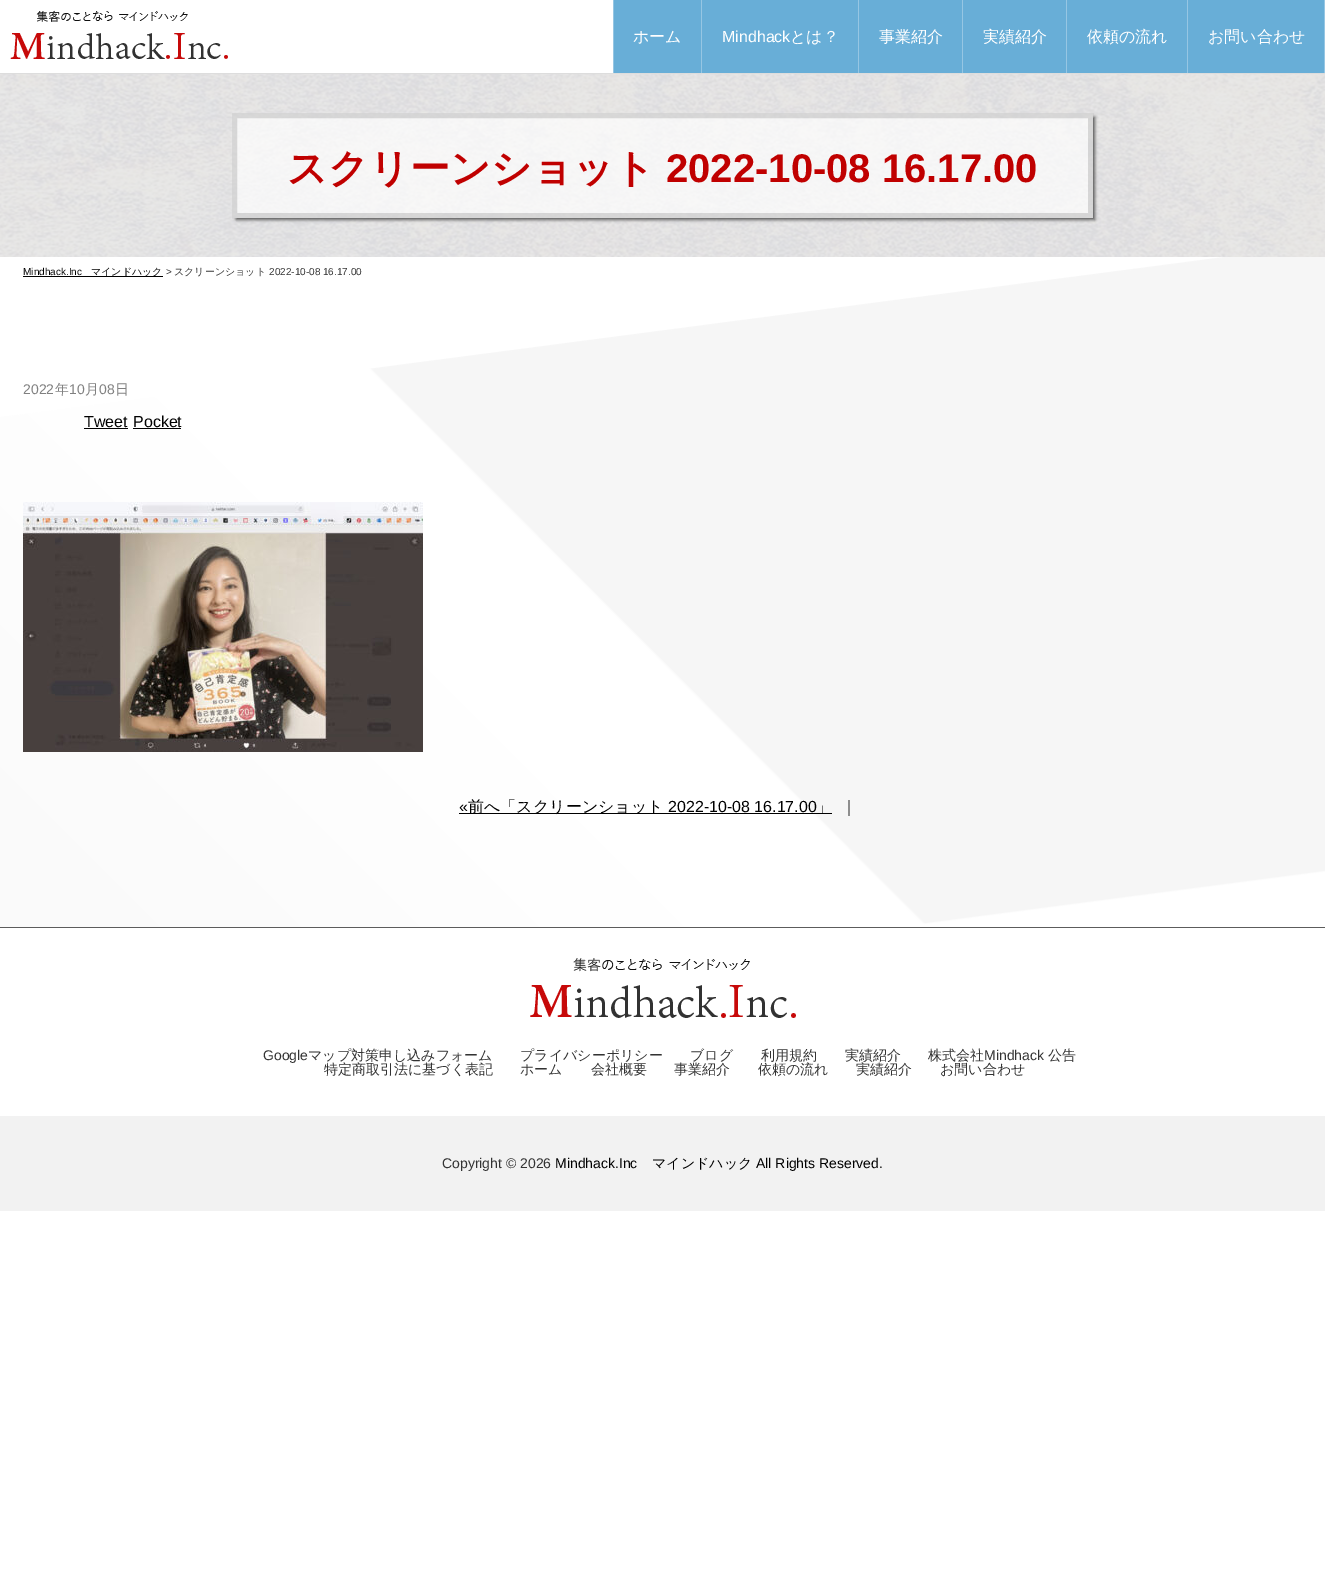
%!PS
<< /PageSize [1325 1582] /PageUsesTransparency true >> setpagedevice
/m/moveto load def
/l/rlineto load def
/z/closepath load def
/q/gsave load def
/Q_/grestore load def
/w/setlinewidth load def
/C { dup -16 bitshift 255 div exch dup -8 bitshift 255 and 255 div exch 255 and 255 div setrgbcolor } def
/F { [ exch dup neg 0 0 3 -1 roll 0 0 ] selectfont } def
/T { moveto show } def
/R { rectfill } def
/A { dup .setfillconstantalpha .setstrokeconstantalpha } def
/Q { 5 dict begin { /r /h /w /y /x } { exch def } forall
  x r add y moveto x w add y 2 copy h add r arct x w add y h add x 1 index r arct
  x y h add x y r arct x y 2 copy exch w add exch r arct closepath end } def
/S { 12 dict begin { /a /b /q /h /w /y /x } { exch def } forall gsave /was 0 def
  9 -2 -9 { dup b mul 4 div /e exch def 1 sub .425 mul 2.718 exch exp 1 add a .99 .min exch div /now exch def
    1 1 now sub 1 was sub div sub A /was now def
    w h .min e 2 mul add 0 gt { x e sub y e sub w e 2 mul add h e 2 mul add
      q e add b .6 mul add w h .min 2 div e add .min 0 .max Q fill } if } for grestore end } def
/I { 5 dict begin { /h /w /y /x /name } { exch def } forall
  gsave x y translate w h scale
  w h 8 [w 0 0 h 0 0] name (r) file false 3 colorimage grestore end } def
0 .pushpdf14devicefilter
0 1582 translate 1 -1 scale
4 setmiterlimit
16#FFFFFF C
0 0 1325 1582 R
16#DDDDDD C
0 73 1325 1 R
(1.rgb) 10 10 218 49 I
16#68AED7 C
614 0 710 73 R
16#96C6E3 C
613 0 1 73 R
/WenQuanYiZenHei-Medium 16 F
16#FFFFFF C
(ホーム) 633 42 T
16#96C6E3 C
701 0 1 73 R
/LiberationSans-Regular 16 F
16#FFFFFF C
(Mindhack) 722 42 T
/WenQuanYiZenHei-Medium 16 F
(とは？) 790 42 T
16#96C6E3 C
858 0 1 73 R
16#FFFFFF C
(事業紹介) 879 42 T
16#96C6E3 C
962 0 1 73 R
16#FFFFFF C
(実績紹介) 983 42 T
16#96C6E3 C
1066 0 1 73 R
16#FFFFFF C
(依頼の流れ) 1087 42 T
16#96C6E3 C
1187 0 1 73 R
16#FFFFFF C
(お問い合わせ) 1208 42 T
16#96C6E3 C
1324 0 1 73 R
(2.rgb) 0 257 1325 670 I
(3.rgb) 0 74 1325 183 I
q
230 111 m 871 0 l 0 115 l -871 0 l z 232 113 m 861 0 l 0 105 l -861 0 l z eoclip newpath
16#666666 C
236 117 859 103 0 1.5 1 S
Q_
0.69 A
16#FFFFFF C
232 113 861 105 R
0.13 A
16#000000 C
5 w
234.5 115.5 856 100 rectstroke
/WenQuanYiZenHei-Bold 40 F
1 A
16#C00000 C
(スクリーンショット) 287 182 T
/LiberationSans-Bold 40 F
(2022-10-08 16.17.00) 666 182 T
/LiberationSans-Regular 10 F
16#000000 C
(Mindhack.Inc) 23 275 T
23 276 140 1 R
/WenQuanYiZenHei-Medium 10 F
(マインドハック) 91 275 T
/LiberationSans-Regular 10 F
16#333333 C
(>) 166 275 T
/WenQuanYiZenHei-Medium 10 F
(スクリーンショット) 174 275 T
/LiberationSans-Regular 10 F
(2022-10-08 16.17.00) 269 275 T
/LiberationSans-Regular 14 F
16#808080 C
(2022) 23 394 T
/WenQuanYiZenHei-Medium 14 F
(年) 55 394 T
/LiberationSans-Regular 14 F
(10) 69 394 T
/WenQuanYiZenHei-Medium 14 F
(月) 85 394 T
/LiberationSans-Regular 14 F
(08) 99 394 T
/WenQuanYiZenHei-Medium 14 F
(日) 115 394 T
/LiberationSans-Regular 16 F
16#000000 C
(Tweet) 84 427 T
84 428 44 1 R
(Pocket) 133 427 T
133 428 48 1 R
(4.rgb) 23 502 400 250 I
(«) 459 812 T
459 813 373 1 R
/WenQuanYiZenHei-Medium 16 F
(前へ「スクリーンショット) 468 812 T
/LiberationSans-Regular 16 F
(2022-10-08 16.17.00) 668 812 T
/WenQuanYiZenHei-Medium 16 F
(」) 816 812 T
16#333333 C
(｜) 841 812 T
16#5C5C5C C
0 927 1325 1 R
(5.rgb) 530 958 266 60 I
/LiberationSans-Regular 14 F
16#333333 C
(Google) 263 1060 T
/WenQuanYiZenHei-Medium 14 F
(マップ対策申し込みフォーム) 308 1060 T
(プライバシーポリシー) 520 1060 T
(ブログ) 690 1060 T
(利用規約) 761 1060 T
(実績紹介) 845 1060 T
(株式会社) 928 1060 T
/LiberationSans-Regular 14 F
(Mindhack) 984 1060 T
/WenQuanYiZenHei-Medium 14 F
(公告) 1048 1060 T
(特定商取引法に基づく表記) 324 1074 T
(ホーム) 520 1074 T
(会社概要) 591 1074 T
(事業紹介) 674 1074 T
(依頼の流れ) 758 1074 T
(実績紹介) 856 1074 T
(お問い合わせ) 940 1074 T
16#F2F2F2 C
0 1116 1325 95 R
/LiberationSans-Regular 14 F
16#333333 C
(Copyright © 2026) 442 1168 T
16#000000 C
(Mindhack.Inc) 555 1168 T
/WenQuanYiZenHei-Medium 14 F
(マインドハック) 652 1168 T
/LiberationSans-Regular 14 F
(All Rights Reserved.) 756 1168 T
.poppdf14devicefilter showpage
